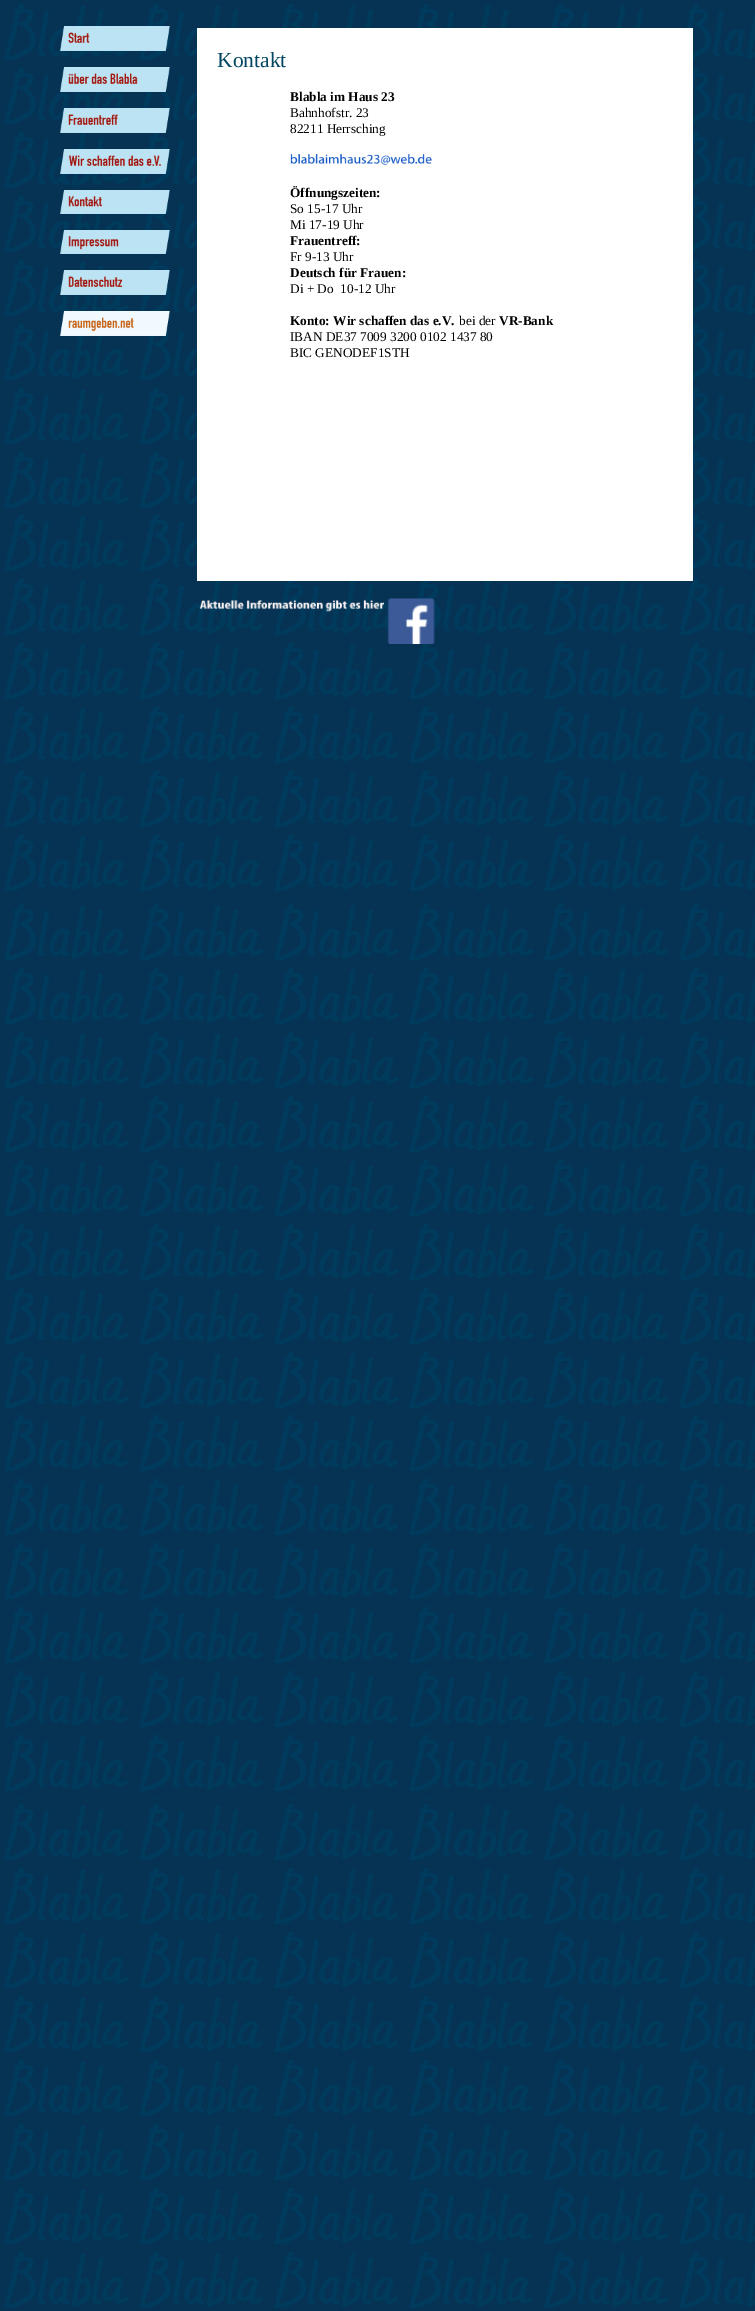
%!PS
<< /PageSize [755 2311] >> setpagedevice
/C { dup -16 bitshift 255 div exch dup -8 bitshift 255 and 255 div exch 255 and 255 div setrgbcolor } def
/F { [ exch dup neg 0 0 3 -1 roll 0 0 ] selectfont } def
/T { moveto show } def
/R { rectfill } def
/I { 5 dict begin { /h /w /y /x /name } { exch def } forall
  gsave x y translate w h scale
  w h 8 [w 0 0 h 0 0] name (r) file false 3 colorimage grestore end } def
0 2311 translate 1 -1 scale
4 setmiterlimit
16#FFFFFF C
0 0 755 2311 R
(1.rgb) 0 0 755 2311 I
(2.rgb) 60 26 110 25 I
(3.rgb) 60 67 110 25 I
(4.rgb) 60 108 110 25 I
(5.rgb) 60 149 110 25 I
(6.rgb) 60 190 110 24 I
(7.rgb) 60 230 110 24 I
(8.rgb) 60 270 110 25 I
(9.rgb) 60 311 110 25 I
197 28 496 553 R
/LiberationSerif-Regular 21.5 F
16#004660 C
(Kontakt) 217 67 T
/LiberationSerif-Bold 13.3 F
16#000000 C
(Blabla im Haus 23) 290 101 T
/LiberationSerif-Regular 13.3 F
(Bahnhofstr. 23) 290 117 T
(82211 Herrsching) 290 133 T
(10.rgb) 290 154 142 11 I
/LiberationSerif-Bold 13.3 F
(Öffnungszeiten:) 290 197 T
/LiberationSerif-Regular 13.3 F
(So 15-17 Uhr) 290 213 T
(Mi 17-19 Uhr) 290 229 T
/LiberationSerif-Bold 13.3 F
(Frauentreff:) 290 245 T
/LiberationSerif-Regular 13.3 F
(Fr 9-13 Uhr) 290 261 T
/LiberationSerif-Bold 13.3 F
(Deutsch für Frauen:) 290 277 T
/LiberationSerif-Regular 13.3 F
(Di + Do  10-12 Uhr) 290 293 T
/LiberationSerif-Bold 13.3 F
(Konto: Wir schaffen das e.V.) 290 325 T
/LiberationSerif-Regular 13.3 F
(bei der) 459 325 T
/LiberationSerif-Bold 13.3 F
(VR-Bank) 499 325 T
/LiberationSerif-Regular 13.3 F
(IBAN DE37 7009 3200 0102 1437 80) 290 341 T
(BIC GENODEF1STH) 290 357 T
(11.rgb) 199 598 236 46 I
showpage
